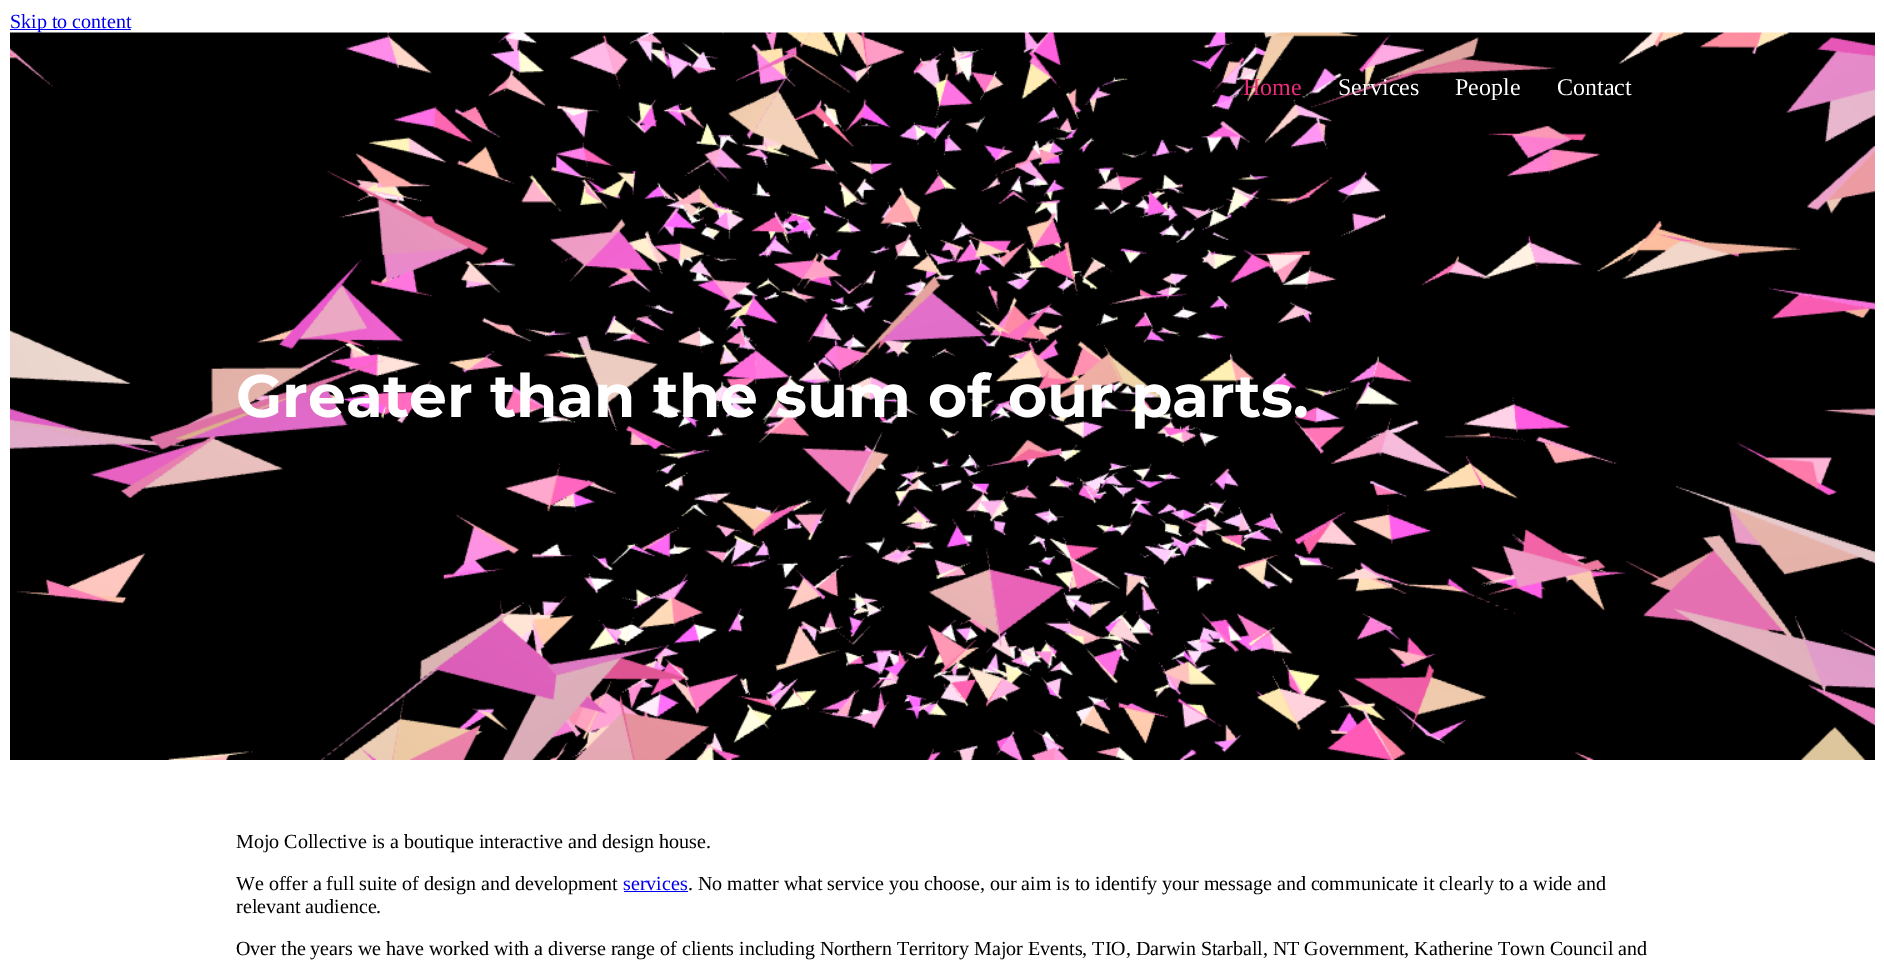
%!PS
<< /PageSize [1884 970] >> setpagedevice
/C { dup -16 bitshift 255 div exch dup -8 bitshift 255 and 255 div exch 255 and 255 div setrgbcolor } def
/F { [ exch dup neg 0 0 3 -1 roll 0 0 ] selectfont } def
/T { moveto show } def
/R { rectfill } def
/I { 5 dict begin { /h /w /y /x /name } { exch def } forall
  gsave x y translate w h scale
  w h 8 [w 0 0 h 0 0] name (r) file false 3 colorimage grestore end } def
0 970 translate 1 -1 scale
4 setmiterlimit
16#FFFFFF C
0 0 1884 970 R
16#0000EE C
10 29 121 1 R
/LiberationSerif-Regular 20 F
(Skip to content) 10 28 T
(1.rgb) 10 32 1865 728 I
/LiberationSerif-Regular 24 F
16#EA2C7B C
(Home) 1243 95 T
16#FFFFFF C
(Services) 1338 95 T
(People) 1455 95 T
(Contact) 1557 95 T
/Montserrat-Bold 60 F
(Greater than the sum of our parts.) 236 417 T
/LiberationSerif-Regular 20 F
16#000000 C
(Mojo Collective is a boutique interactive and design house.) 236 848 T
(We offer a full suite of design and development) 236 890 T
16#0000EE C
(services) 623 890 T
16#000000 C
(. No matter what service you choose, our aim is to identify your message and communicate it clearly to a wide and) 688 890 T
16#0000EE C
624 891 64 1 R
16#000000 C
(relevant audience.) 236 913 T
(Over the years we have worked with a diverse range of clients including Northern Territory Major Events, TIO, Darwin Starball, NT Government, Katherine Town Council and) 236 955 T
showpage
